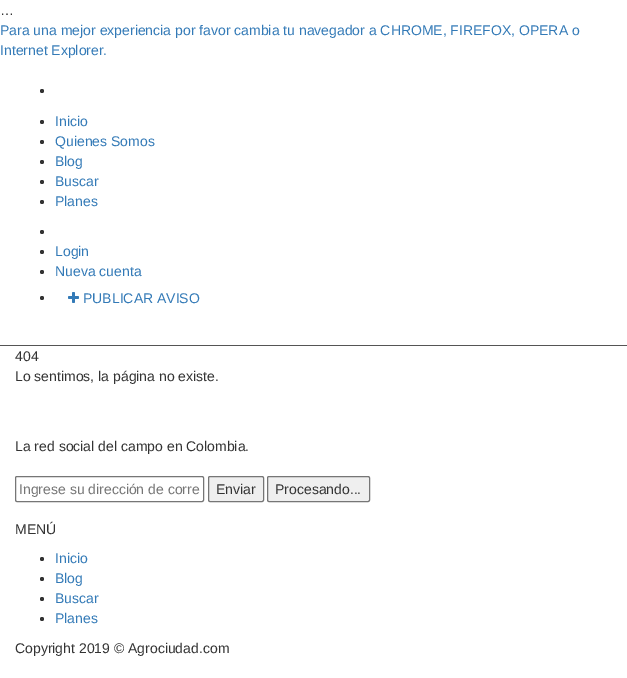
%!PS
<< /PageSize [627 678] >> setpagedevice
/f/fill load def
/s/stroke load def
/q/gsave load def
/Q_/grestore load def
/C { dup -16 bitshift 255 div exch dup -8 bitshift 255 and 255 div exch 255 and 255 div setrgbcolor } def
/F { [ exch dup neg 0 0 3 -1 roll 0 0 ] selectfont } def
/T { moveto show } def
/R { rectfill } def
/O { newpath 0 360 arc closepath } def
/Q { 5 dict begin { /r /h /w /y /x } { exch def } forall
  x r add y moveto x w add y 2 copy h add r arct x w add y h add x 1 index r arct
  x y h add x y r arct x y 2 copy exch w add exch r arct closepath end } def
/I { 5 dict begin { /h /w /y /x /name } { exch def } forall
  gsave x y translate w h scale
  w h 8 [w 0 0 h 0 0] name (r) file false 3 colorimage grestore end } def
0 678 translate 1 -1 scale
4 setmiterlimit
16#FFFFFF C
0 0 627 678 R
/LiberationSans-Regular 14 F
16#333333 C
(…) 0 15 T
16#337AB7 C
(Para una mejor experiencia por favor cambia tu navegador a CHROME, FIREFOX, OPERA o) 0 35 T
(Internet Explorer.) 0 55 T
16#555555 C
0 345 627 1 R
16#333333 C
42 91 2 O f
42 122 2 O f
16#337AB7 C
(Inicio) 55 126 T
16#333333 C
42 142 2 O f
16#337AB7 C
(Quienes Somos) 55 146 T
16#333333 C
42 162 2 O f
16#337AB7 C
(Blog) 55 166 T
16#333333 C
42 182 2 O f
16#337AB7 C
(Buscar) 55 186 T
16#333333 C
42 202 2 O f
16#337AB7 C
(Planes) 55 206 T
16#333333 C
42 232 2 O f
42 252 2 O f
16#337AB7 C
(Login) 55 256 T
16#333333 C
42 272 2 O f
16#337AB7 C
(Nueva cuenta) 55 276 T
16#333333 C
42 298 2 O f
(1.rgb) 68 292 11 11 I
16#337AB7 C
(PUBLICAR AVISO) 83 303 T
16#333333 C
(404) 15 361 T
(Lo sentimos, la página no existe.) 15 381 T
(La red social del campo en Colombia.) 15 451 T
16#767676 C
15.5 476.5 188 25 1.5 Q s
16#757575 C
(Ingrese su dirección de corre) 19 494 T
16#EFEFEF C
208.5 476.5 55 25 1.5 Q q f Q_
16#767676 C
s
16#333333 C
(Enviar) 216 494 T
16#EFEFEF C
267.5 476.5 102 25 1.5 Q q f Q_
16#767676 C
s
16#333333 C
(Procesando...) 275 494 T
(MENÚ) 15 534 T
42 559 2 O f
16#337AB7 C
(Inicio) 55 563 T
16#333333 C
42 579 2 O f
16#337AB7 C
(Blog) 55 583 T
16#333333 C
42 599 2 O f
16#337AB7 C
(Buscar) 55 603 T
16#333333 C
42 619 2 O f
16#337AB7 C
(Planes) 55 623 T
16#333333 C
(Copyright 2019 © Agrociudad.com) 15 653 T
showpage
